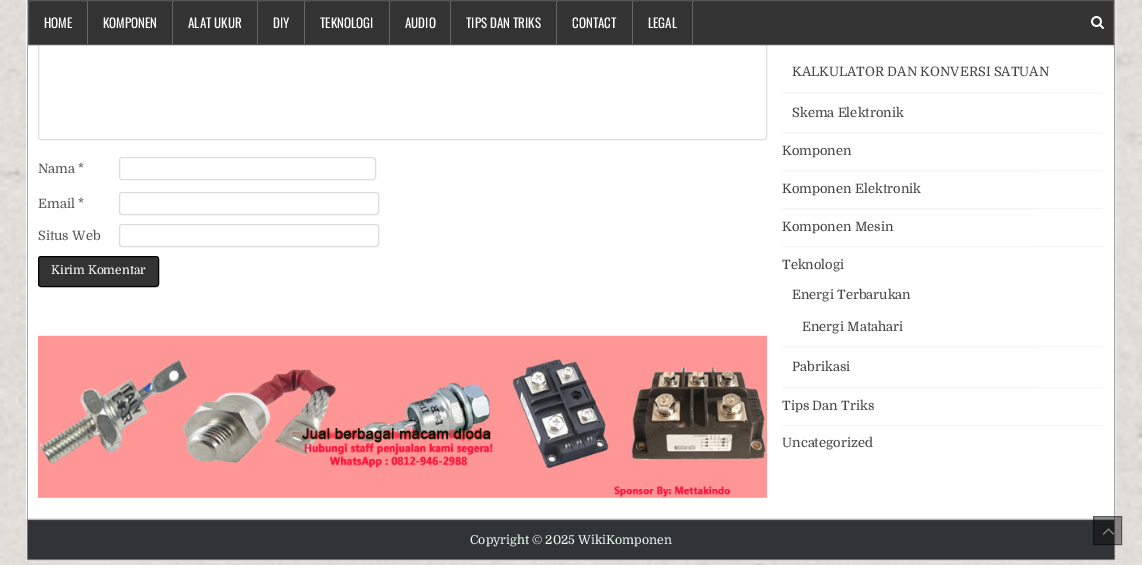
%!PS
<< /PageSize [1142 565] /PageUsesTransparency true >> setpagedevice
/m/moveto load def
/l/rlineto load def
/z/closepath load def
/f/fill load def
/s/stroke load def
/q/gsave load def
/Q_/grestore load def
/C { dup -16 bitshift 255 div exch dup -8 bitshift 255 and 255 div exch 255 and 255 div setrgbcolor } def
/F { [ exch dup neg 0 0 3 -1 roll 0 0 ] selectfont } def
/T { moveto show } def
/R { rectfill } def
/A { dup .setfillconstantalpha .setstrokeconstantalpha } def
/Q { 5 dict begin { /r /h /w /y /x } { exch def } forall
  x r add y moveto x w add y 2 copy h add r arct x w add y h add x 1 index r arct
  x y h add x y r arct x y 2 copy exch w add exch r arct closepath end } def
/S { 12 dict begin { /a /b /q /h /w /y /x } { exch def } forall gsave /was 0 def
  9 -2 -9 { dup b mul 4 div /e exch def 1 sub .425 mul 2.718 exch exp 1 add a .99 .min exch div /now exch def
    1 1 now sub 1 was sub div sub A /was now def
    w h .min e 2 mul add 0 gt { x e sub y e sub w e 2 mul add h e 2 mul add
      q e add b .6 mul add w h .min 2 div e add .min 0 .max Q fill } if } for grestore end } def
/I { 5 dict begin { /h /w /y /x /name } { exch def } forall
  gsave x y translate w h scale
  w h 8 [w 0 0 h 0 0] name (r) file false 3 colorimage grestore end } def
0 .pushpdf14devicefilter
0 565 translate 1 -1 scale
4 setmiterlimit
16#FFFFFF C
0 0 1142 565 R
(1.rgb) 0 0 1142 565 I
16#F9F9F9 C
26.5 -.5 1089 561 rectstroke
16#A8A8A8 C
27.5 -.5 1087 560 rectstroke
16#FFFFFF C
28 45 1086 475 R
16#DDDDDD C
38.5 -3.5 728 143 2.5 Q s
16#333333 C
28.5 .5 m 1085 0 l 0 44 l -1085 0 l z q f Q_
16#555555 C
s
16#666666 C
87 1 1 43 R
/Oswald-Regular 13 F
16#FFFFFF C
(HOME) 44 28 T
16#666666 C
172 1 1 43 R
16#FFFFFF C
(KOMPONEN) 103 28 T
16#666666 C
257 1 1 43 R
16#FFFFFF C
(ALAT UKUR) 188 28 T
16#666666 C
304 1 1 43 R
16#FFFFFF C
(DIY) 273 28 T
16#666666 C
389 1 1 43 R
16#FFFFFF C
(TEKNOLOGI) 320 28 T
16#666666 C
450 1 1 43 R
16#FFFFFF C
(AUDIO) 405 28 T
16#666666 C
556 1 1 43 R
16#FFFFFF C
(TIPS DAN TRIKS) 466 28 T
16#666666 C
632 1 1 43 R
16#FFFFFF C
(CONTACT) 572 28 T
16#666666 C
692 1 1 43 R
16#FFFFFF C
(LEGAL) 648 28 T
(2.rgb) 1091 16 13 13 I
/Domine-Regular 13 F
16#555555 C
(Nama *) 38 173 T
16#DDDDDD C
119.5 157.5 256 22 2.5 Q s
16#555555 C
(Email *) 38 208 T
16#DDDDDD C
119.5 192.5 259 22 2.5 Q s
16#555555 C
(Situs Web) 38 240 T
16#DDDDDD C
119.5 224.5 259 22 2.5 Q s
16#333333 C
38.5 256.5 120 30 2.5 Q q f Q_
16#000000 C
s
/Domine-Regular 12 F
16#FFFFFF C
(Kirim Komentar) 51 274 T
(3.rgb) 38 335 729 163 I
16#EEEEEE C
[1 1] 0 setdash
782 132.5 m 322 0 l s
782 92.5 m 322 0 l s
/Domine-Regular 13 F
16#444444 C
(KALKULATOR DAN KONVERSI SATUAN) 792 76 T
(Skema Elektronik) 792 117 T
16#EEEEEE C
782 170.5 m 322 0 l s
16#444444 C
(Komponen) 782 155 T
16#EEEEEE C
782 208.5 m 322 0 l s
16#444444 C
(Komponen Elektronik) 782 193 T
16#EEEEEE C
782 246.5 m 322 0 l s
16#444444 C
(Komponen Mesin) 782 231 T
16#EEEEEE C
782 387.5 m 322 0 l s
16#444444 C
(Teknologi) 782 269 T
16#EEEEEE C
782 346.5 m 322 0 l s
16#444444 C
(Energi Terbarukan) 792 299 T
(Energi Matahari) 802 331 T
(Pabrikasi) 792 371 T
16#EEEEEE C
782 425.5 m 322 0 l s
16#444444 C
(Tips Dan Triks) 782 410 T
(Uncategorized) 782 447 T
16#000000 C
28 520 1086 39 0 1 1 S
16#303436 C
28 521 1086 38 R
16#3D3D3D C
28 520 1086 1 R
/Domine-Regular 12.3 F
16#ECFFF1 C
(Copyright © 2025 WikiKomponen) 470 544 T
0.4 A
16#000000 C
1093 516 29 29 R
1 A
(4.rgb) 1103 528 11 7 I
0.4 A
[] 0 setdash
1093.5 516.5 28 28 rectstroke
.poppdf14devicefilter showpage
